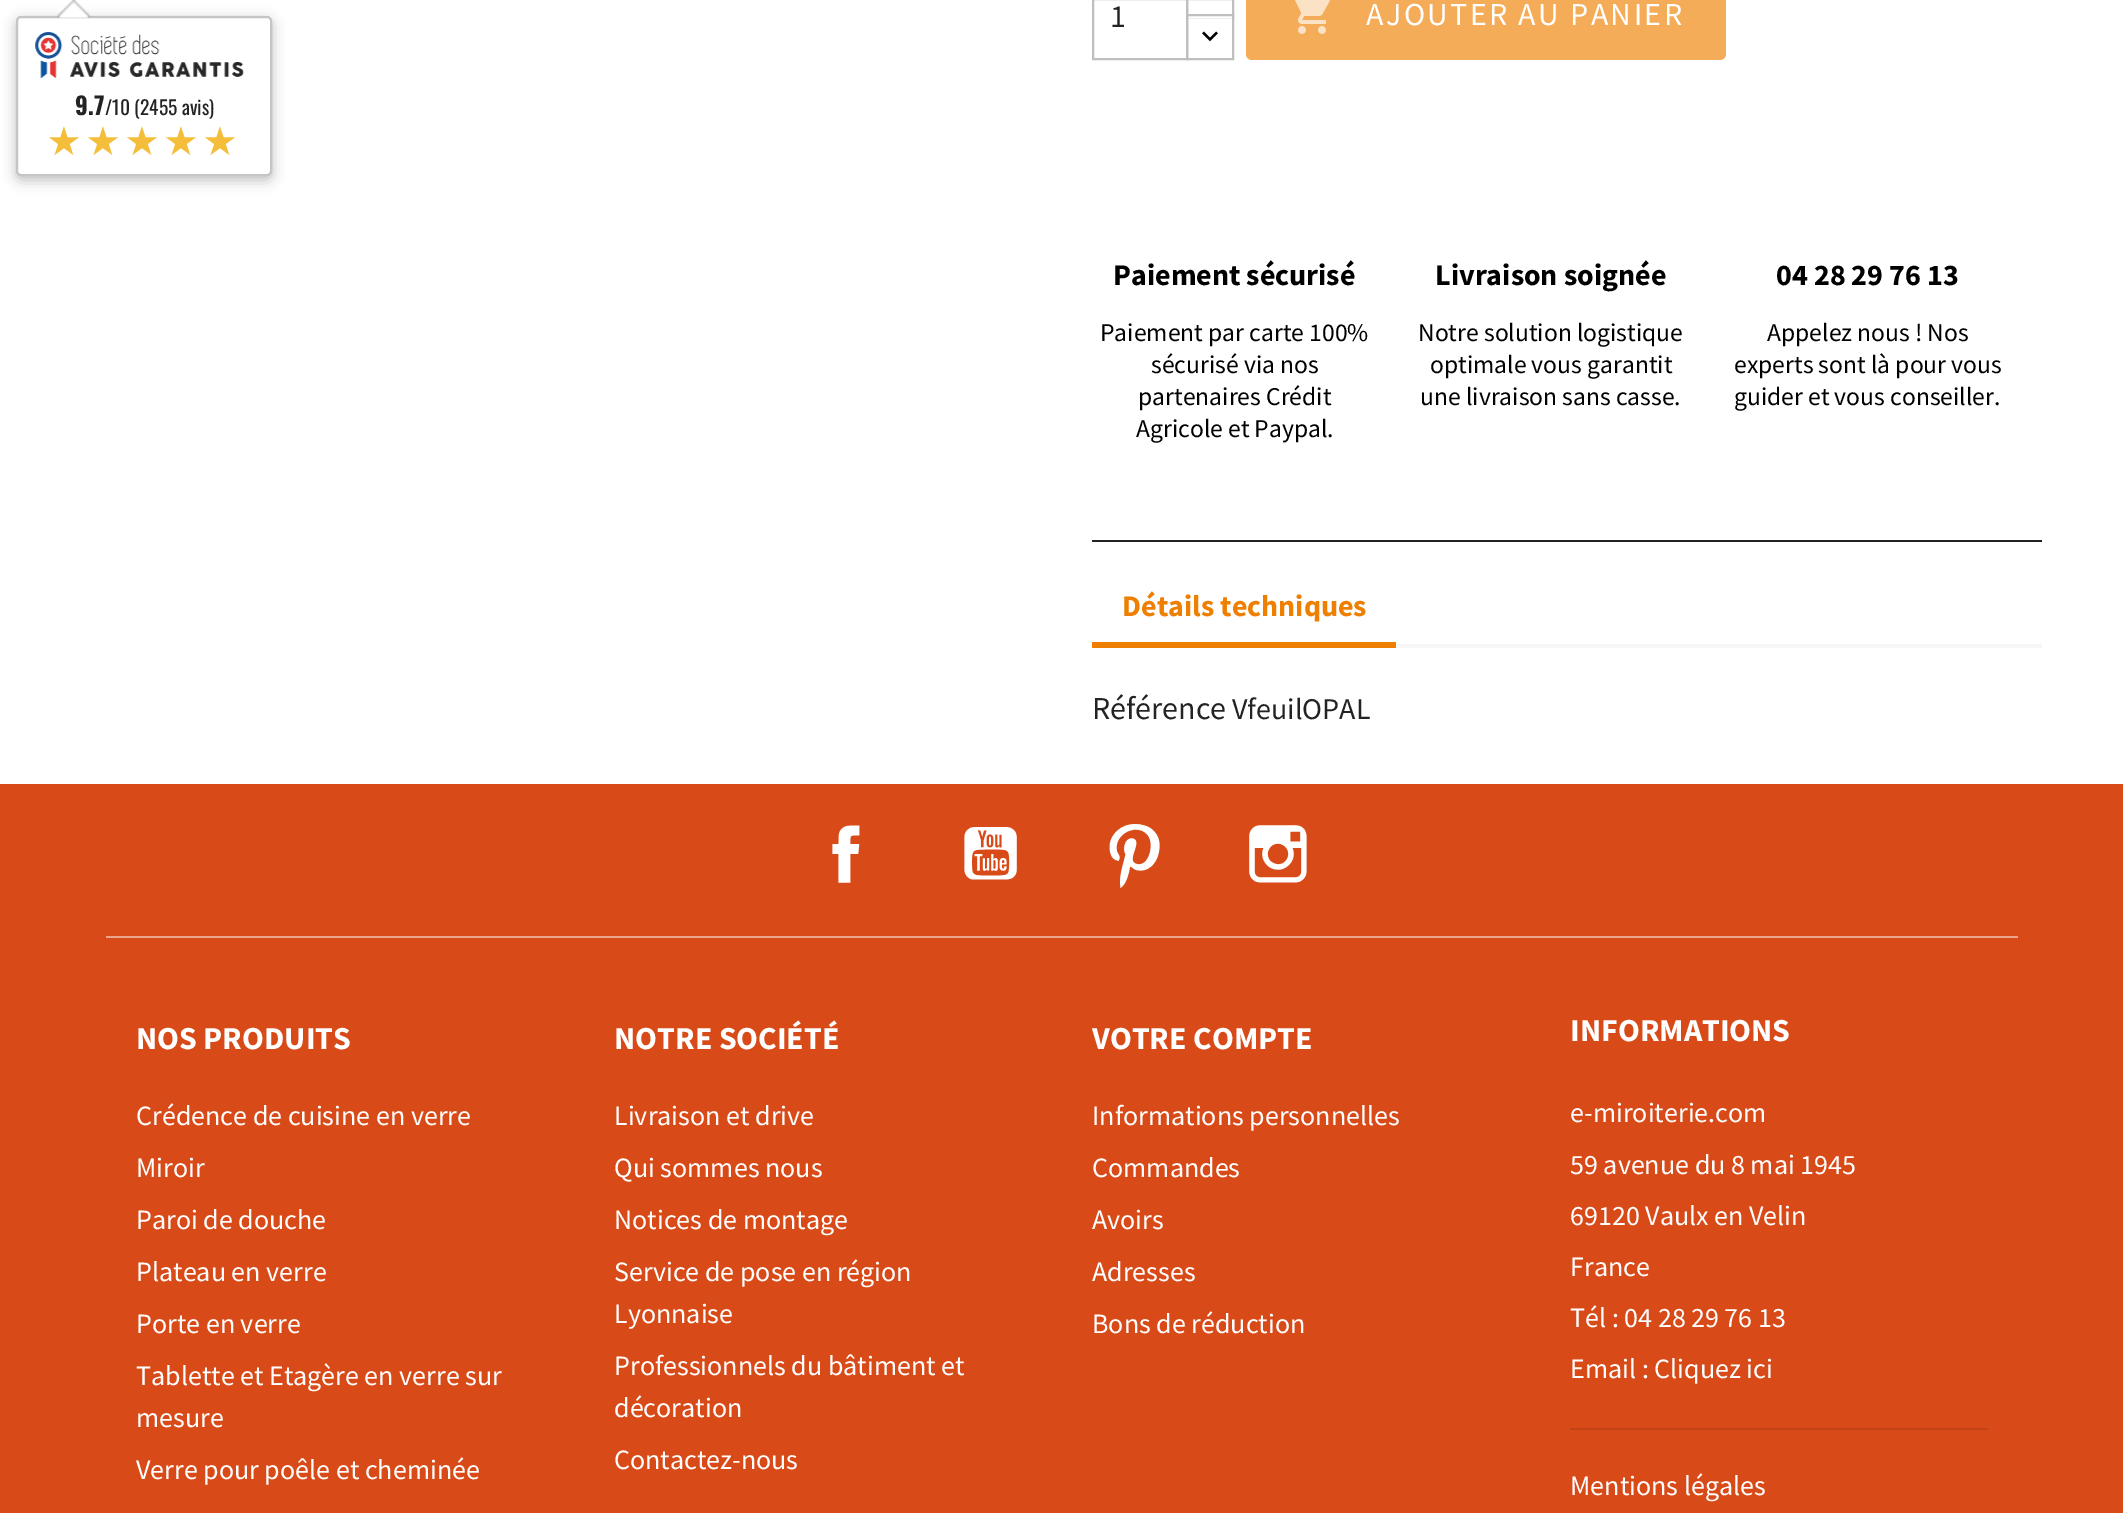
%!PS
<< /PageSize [2123 1513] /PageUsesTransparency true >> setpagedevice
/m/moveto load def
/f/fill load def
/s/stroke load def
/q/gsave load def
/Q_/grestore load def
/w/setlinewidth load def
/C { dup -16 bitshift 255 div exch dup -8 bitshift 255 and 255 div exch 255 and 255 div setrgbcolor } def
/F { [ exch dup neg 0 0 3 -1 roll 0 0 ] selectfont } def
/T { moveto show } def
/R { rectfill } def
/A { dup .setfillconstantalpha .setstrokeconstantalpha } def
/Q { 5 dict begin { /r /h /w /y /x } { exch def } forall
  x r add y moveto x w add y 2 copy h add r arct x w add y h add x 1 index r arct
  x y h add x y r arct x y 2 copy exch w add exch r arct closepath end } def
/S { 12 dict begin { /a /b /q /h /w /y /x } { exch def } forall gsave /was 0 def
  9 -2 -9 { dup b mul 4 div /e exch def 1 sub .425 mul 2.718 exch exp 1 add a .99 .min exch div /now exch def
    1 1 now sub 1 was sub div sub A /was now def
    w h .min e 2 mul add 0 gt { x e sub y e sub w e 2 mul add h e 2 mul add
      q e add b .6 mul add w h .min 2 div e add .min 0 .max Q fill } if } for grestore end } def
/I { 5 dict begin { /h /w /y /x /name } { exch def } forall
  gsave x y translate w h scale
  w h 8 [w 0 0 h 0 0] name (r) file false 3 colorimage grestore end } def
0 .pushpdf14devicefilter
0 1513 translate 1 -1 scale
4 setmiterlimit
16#FFFFFF C
0 0 2123 1513 R
16#BFBFBF C
2 w
1187 -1 46 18 rectstroke
16#FFFFFF C
1188 16 44 2 R
16#BFBFBF C
1187 15 46 44 rectstroke
1093 -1 94 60 rectstroke
/SourceSansPro-Regular 32 F
16#232323 C
(1) 1110 27 T
(1.rgb) 1202 31 16 11 I
16#F4AC59 C
1246 -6 480 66 6 Q f
(2.rgb) 1295 0 35 34 I
16#FFFFFF C
1366 25 m 2.4 0 (AJOUTER AU PANIER) ashow
/SourceSansPro-Bold 30 F
16#000000 C
(Paiement sécurisé) 1113 285 T
/SourceSansPro-Regular 25.6 F
(Paiement par carte 100%) 1100 341 T
(sécurisé via nos) 1151 373 T
(partenaires Crédit) 1138 405 T
(Agricole et Paypal.) 1136 437 T
/SourceSansPro-Bold 30 F
(Livraison soignée) 1435 285 T
/SourceSansPro-Regular 25.6 F
(Notre solution logistique) 1418 341 T
(optimale vous garantit) 1430 373 T
(une livraison sans casse.) 1420 405 T
/SourceSansPro-Bold 30 F
(04 28 29 76 13) 1776 285 T
/SourceSansPro-Regular 25.6 F
(Appelez nous ! Nos) 1767 341 T
(experts sont là pour vous) 1734 373 T
(guider et vous conseiller.) 1734 405 T
16#222222 C
1092 540 950 2 R
16#F6F6F6 C
1396 644 646 4 R
16#EE7F00 C
1092 642 304 6 R
/SourceSansPro-Bold 30 F
(Détails techniques) 1122 616 T
/SourceSansPro-Regular 32 F
16#232323 C
(Référence) 1092 719 T
/SourceSansPro-Regular 30 F
(VfeuilOPAL) 1232 719 T
16#D84B18 C
0 784 2123 729 R
16#ECA58C C
106 936 1912 2 R
(3.rgb) 832 825 28 58 I
(4.rgb) 964 827 53 53 I
(5.rgb) 1109 824 51 65 I
(6.rgb) 1249 825 58 58 I
/SourceSansPro-Bold 32 F
16#FFFFFF C
(NOS PRODUITS) 136 1049 T
/SourceSansPro-Regular 28 F
(Crédence de cuisine en verre) 136 1125 T
(Miroir) 136 1177 T
(Paroi de douche) 136 1229 T
(Plateau en verre) 136 1281 T
(Porte en verre) 136 1333 T
(Tablette et Etagère en verre sur) 136 1385 T
(mesure) 136 1427 T
(Verre pour poêle et cheminée) 136 1479 T
/SourceSansPro-Bold 32 F
(NOTRE SOCIÉTÉ) 614 1049 T
/SourceSansPro-Regular 28 F
(Livraison et drive) 614 1125 T
(Qui sommes nous) 614 1177 T
(Notices de montage) 614 1229 T
(Service de pose en région) 614 1281 T
(Lyonnaise) 614 1323 T
(Professionnels du bâtiment et) 614 1375 T
(décoration) 614 1417 T
(Contactez-nous) 614 1469 T
/SourceSansPro-Bold 32 F
(VOTRE COMPTE) 1092 1049 T
/SourceSansPro-Regular 28 F
(Informations personnelles) 1092 1125 T
(Commandes) 1092 1177 T
(Avoirs) 1092 1229 T
(Adresses) 1092 1281 T
(Bons de réduction) 1092 1333 T
/SourceSansPro-Bold 32 F
(INFORMATIONS) 1570 1041 T
/SourceSansPro-Regular 28 F
(e-miroiterie.com) 1570 1122 T
(59 avenue du 8 mai 1945) 1570 1174 T
(69120 Vaulx en Velin) 1570 1225 T
(France) 1570 1276 T
(Tél : 04 28 29 76 13) 1570 1327 T
(Email : Cliquez ici) 1570 1378 T
16#C24416 C
1570 1428 418 2 R
16#FFFFFF C
(Mentions légales) 1570 1495 T
16#000000 C
16 20 256 160 5 6.5 .25 S
16#FFFFFF C
17 17 254 158 4 Q q f Q_
16#C5C5C5 C
s
(7.rgb) 57 0 34 18 I
(8.rgb) 35 32 209 46 I
/Oswald-Bold 24 F
16#232323 C
(9.7) 75 115 T
/Oswald-Regular 19.5 F
(/10 \(2455 avis\)) 105 115 T
/DejaVuSans-Regular 40 F
16#F4BD3A C
46 155 m 3.25 0 (★★★★★) ashow
.poppdf14devicefilter showpage
